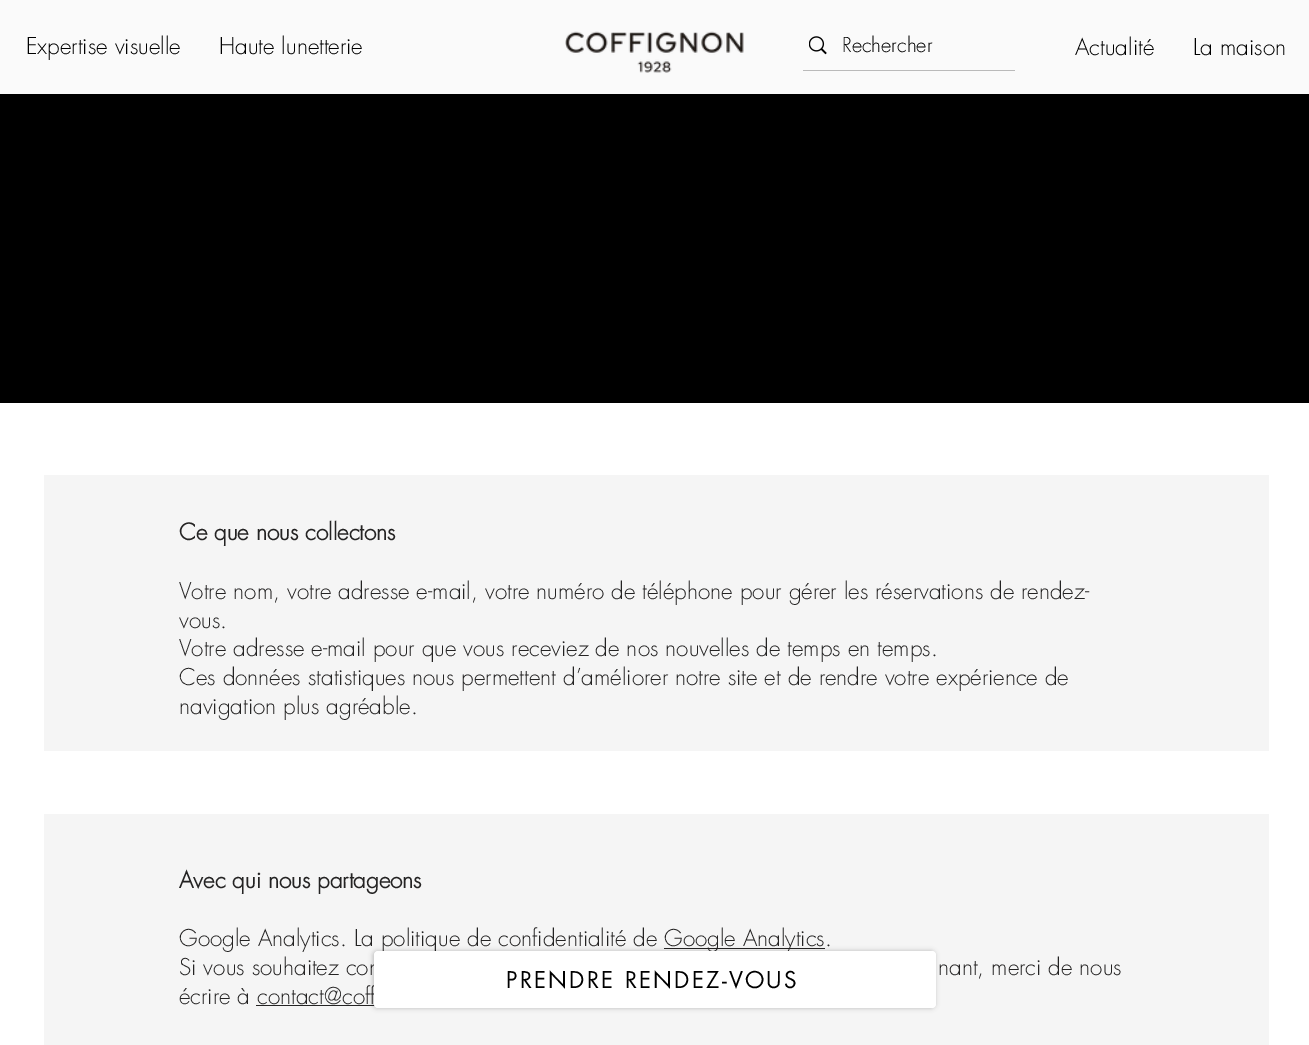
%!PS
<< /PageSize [1309 1045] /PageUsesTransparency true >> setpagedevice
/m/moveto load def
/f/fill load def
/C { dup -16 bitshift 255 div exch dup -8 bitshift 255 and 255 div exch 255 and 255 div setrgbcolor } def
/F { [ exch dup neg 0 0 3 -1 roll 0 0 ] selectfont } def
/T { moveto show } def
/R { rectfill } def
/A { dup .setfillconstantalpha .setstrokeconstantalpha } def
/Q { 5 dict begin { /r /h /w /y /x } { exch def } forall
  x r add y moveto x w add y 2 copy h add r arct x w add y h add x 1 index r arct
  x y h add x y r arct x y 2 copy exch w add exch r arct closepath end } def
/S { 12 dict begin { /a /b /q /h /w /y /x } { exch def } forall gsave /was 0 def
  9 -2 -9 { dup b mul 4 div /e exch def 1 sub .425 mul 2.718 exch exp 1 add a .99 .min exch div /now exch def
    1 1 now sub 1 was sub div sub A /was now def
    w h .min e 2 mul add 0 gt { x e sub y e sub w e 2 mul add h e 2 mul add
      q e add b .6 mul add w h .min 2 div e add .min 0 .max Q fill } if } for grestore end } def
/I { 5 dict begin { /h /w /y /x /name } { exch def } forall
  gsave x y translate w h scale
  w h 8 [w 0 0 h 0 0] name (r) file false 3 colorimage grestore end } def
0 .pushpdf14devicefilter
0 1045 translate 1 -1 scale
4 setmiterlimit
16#FFFFFF C
0 0 1309 1045 R
16#FAFAFA C
0 0 1309 94 R
/futura-Light 22.5 F
16#000000 C
(Expertise visuelle) 26 54 T
(Haute lunetterie) 219 54 T
(1.rgb) 565 31 179 42 I
16#BABABA C
803 70 212 1 R
(2.rgb) 809 36 18 19 I
/futura-Light 20 F
16#000000 C
(Rechercher) 842 52 T
/futura-Light 22.5 F
(Actualité) 1075 55 T
(La maison) 1193 55 T
0 94 1309 309 R
16#F5F5F5 C
44 475 1225 276 R
/futura-Bold 22.5 F
16#242323 C
(Ce que nous collectons) 179 540 T
/futura-Light 22.5 F
(Votre nom, votre adresse e-mail, votre numéro de téléphone pour gérer les réservations de rendez-) 179 599 T
(vous.) 179 628 T
(Votre adresse e-mail pour que vous receviez de nos nouvelles de temps en temps.) 179 656 T
(Ces données statistiques nous permettent d’améliorer notre site et de rendre votre expérience de) 179 685 T
(navigation plus agréable.) 179 714 T
16#F5F5F5 C
44 814 1225 231 R
/futura-Bold 22.5 F
16#242323 C
(Avec qui nous partageons) 179 888 T
/futura-Light 22.5 F
(Google Analytics. La politique de confidentialité de) 179 946 T
664 948 161 1 R
(Google Analytics.) 664 946 T
(Si vous souhaitez con) 179 975 T
(nant, merci de nous) 938 975 T
(écrire à contact@coff) 179 1004 T
256 1005 119 1 R
16#000000 C
373 951 562 57 4 2.5 .23 S
16#FFFFFF C
374 951 562 57 4 Q f
/futura-Regular 22.5 F
16#000000 C
506 988 m 2.25 0 (PRENDRE RENDEZ-VOUS) ashow
.poppdf14devicefilter showpage
